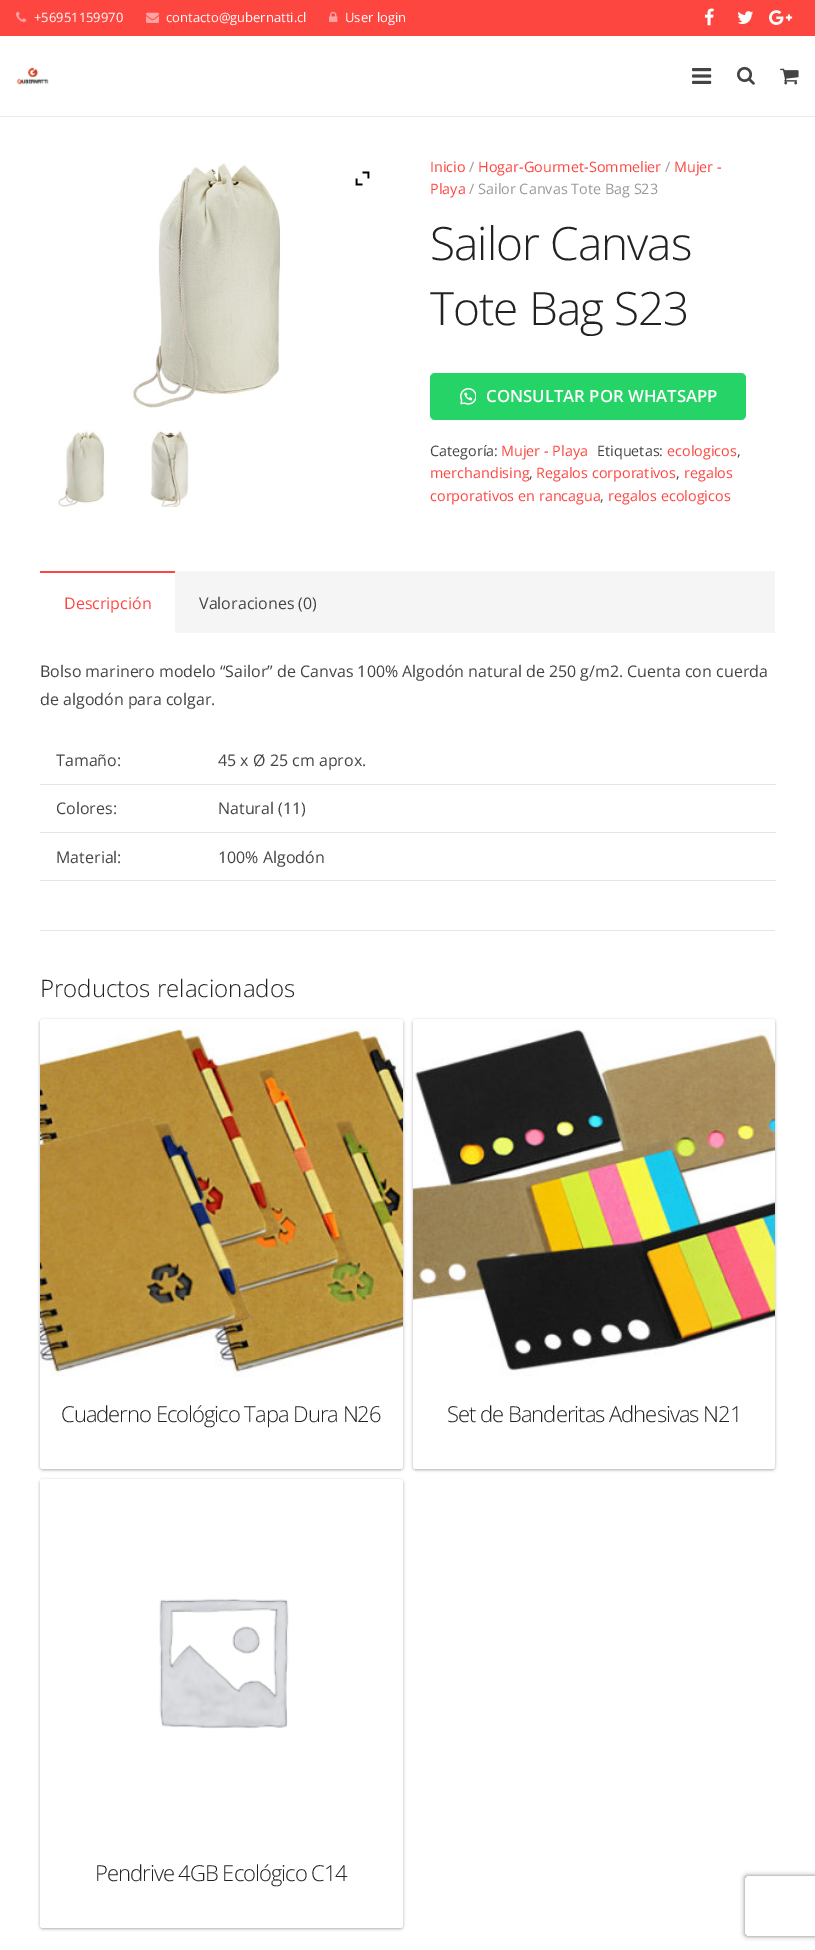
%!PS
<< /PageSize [815 1950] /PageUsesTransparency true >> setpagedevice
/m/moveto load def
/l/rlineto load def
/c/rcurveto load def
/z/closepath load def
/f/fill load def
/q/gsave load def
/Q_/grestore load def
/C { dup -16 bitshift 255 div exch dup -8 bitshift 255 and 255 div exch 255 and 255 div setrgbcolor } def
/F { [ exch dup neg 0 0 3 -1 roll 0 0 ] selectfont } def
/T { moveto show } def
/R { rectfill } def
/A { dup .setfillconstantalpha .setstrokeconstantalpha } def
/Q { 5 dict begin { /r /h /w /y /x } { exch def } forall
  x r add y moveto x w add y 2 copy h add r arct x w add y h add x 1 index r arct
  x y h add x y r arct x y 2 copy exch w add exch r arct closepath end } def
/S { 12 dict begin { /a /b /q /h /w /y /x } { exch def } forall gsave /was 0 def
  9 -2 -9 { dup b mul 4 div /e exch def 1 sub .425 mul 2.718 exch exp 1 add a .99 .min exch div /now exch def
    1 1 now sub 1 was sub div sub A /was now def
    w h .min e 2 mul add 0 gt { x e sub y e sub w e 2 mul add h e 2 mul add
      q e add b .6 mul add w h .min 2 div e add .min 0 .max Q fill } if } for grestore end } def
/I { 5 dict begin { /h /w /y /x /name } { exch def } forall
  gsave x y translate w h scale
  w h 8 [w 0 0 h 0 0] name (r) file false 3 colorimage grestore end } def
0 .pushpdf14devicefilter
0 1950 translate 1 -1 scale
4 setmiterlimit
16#FFFFFF C
0 0 815 1950 R
16#FE4641 C
0 0 815 36 R
(1.rgb) 16 11 11 11 I
/OpenSans-Regular 13 F
16#FFFFFF C
(+56951159970) 34 22 T
(2.rgb) 146 12 13 11 I
(contacto@gubernatti.cl) 166 22 T
(3.rgb) 329 11 9 11 I
(User login) 345 22 T
(4.rgb) 704 8 10 18 I
(5.rgb) 737 11 17 13 I
(6.rgb) 769 10 24 15 I
16#EBEBEB C
0 116 815 1 R
(7.rgb) 16 67 33 18 I
(8.rgb) 692 68 20 16 I
(9.rgb) 737 66 18 19 I
(10.rgb) 780 68 19 17 I
(11.rgb) 132 163 151 245 I
(12.rgb) 355 171 15 15 I
(13.rgb) 58 429 47 78 I
(14.rgb) 150 429 39 78 I
/OpenSans-Regular 14.4 F
16#FE4641 C
(Inicio) 430 172 T
16#999999 C
(/) 469 172 T
16#FE4641 C
(Hogar-Gourmet-Sommelier) 478 172 T
16#999999 C
(/) 665 172 T
16#FE4641 C
(Mujer -) 674 172 T
(Playa) 430 194 T
16#999999 C
(/ Sailor Canvas Tote Bag S23) 469 194 T
/OpenSans-Light 46 F
16#222222 C
430 260 m -1 0 (Sailor Canvas) ashow
430 325 m -1 0 (Tote Bag S23) ashow
16#25D366 C
430 373 316 47 5 Q f
(15.rgb) 460 388 16 17 I
/OpenSans-SemiBold 16.75 F
16#FFFFFF C
(CONSULTAR POR WHATSAPP) 486 402 T
/OpenSans-Regular 14.4 F
16#444444 C
(Categoría:) 430 456 T
16#FE4641 C
(Mujer - Playa) 501 456 T
16#444444 C
(Etiquetas:) 597 456 T
16#FE4641 C
(ecologicos) 667 456 T
16#444444 C
(,) 737 456 T
16#FE4641 C
(merchandising) 430 478 T
16#444444 C
(,) 529 478 T
16#FE4641 C
(Regalos corporativos) 536 478 T
16#444444 C
(,) 676 478 T
16#FE4641 C
(regalos) 684 478 T
(corporativos en rancagua) 430 501 T
16#444444 C
(,) 600 501 T
16#FE4641 C
(regalos ecologicos) 608 501 T
16#F5F5F5 C
175 571 600 62 R
16#FE4641 C
40 571 135 2 R
/OpenSans-Regular 16 F
(Descripción) 64 609 T
16#444444 C
(Valoraciones \(0\)) 199 609 T
(Bolso marinero modelo “Sailor” de Canvas 100% Algodón natural de 250 g/m2. Cuenta con cuerda) 40 677 T
(de algodón para colgar.) 40 705 T
(Tamaño:) 56 766 T
16#E5E5E5 C
40 784 736 1 R
16#444444 C
(45 x Ø 25 cm aprox.) 218 766 T
(Colores:) 56 814 T
16#E5E5E5 C
40 832 736 1 R
16#444444 C
(Natural \(11\)) 218 814 T
(Material:) 56 863 T
16#E5E5E5 C
40 880 736 1 R
16#444444 C
(100% Algodón) 218 863 T
16#E5E5E5 C
40 930 735 1 R
/OpenSans-Light 24 F
16#222222 C
(Productos relacionados) 40 997 T
16#000000 C
40 1020 363 450 3 1.5 .25 S
40 1020 363 450 3 .5 .05 S
16#FFFFFF C
40 1019 363 450 3 Q f
(16.rgb) 40 1028 363 349 I
40 1382 m 363 0 l 0 84 l 0 1.5 -1.5 3 -3 3 c -357 0 l -1.5 0 -3 -1.5 -3 -3 c z f
/OpenSans-Light 22 F
16#222222 C
61 1422 m -1 0 (Cuaderno Ecológico Tapa Dura N26) ashow
16#000000 C
413 1020 362 450 3 1.5 .25 S
413 1020 362 450 3 .5 .05 S
16#FFFFFF C
413 1019 362 450 3 Q f
(17.rgb) 413 1029 362 347 I
413 1382 m 362 0 l 0 84 l 0 1.5 -1.5 3 -3 3 c -356 0 l -1.5 0 -3 -1.5 -3 -3 c z f
16#222222 C
447 1422 m -1 0 (Set de Banderitas Adhesivas N21) ashow
16#000000 C
40 1480 363 449 3 1.5 .25 S
40 1480 363 449 3 .5 .05 S
16#FFFFFF C
40 1479 363 449 3 Q f
(18.rgb) 159 1598 130 131 I
40 1841 m 363 0 l 0 84 l 0 1.5 -1.5 3 -3 3 c -357 0 l -1.5 0 -3 -1.5 -3 -3 c z f
16#222222 C
95 1881 m -1 0 (Pendrive 4GB Ecológico C14) ashow
q
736 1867 m 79 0 l 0 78 l -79 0 l z 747 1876 m 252 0 l 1 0 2 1 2 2 c 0 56 l 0 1 -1 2 -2 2 c -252 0 l -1 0 -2 -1 -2 -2 c 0 -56 l 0 -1 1 -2 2 -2 c z eoclip newpath
16#808080 C
745 1876 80 60 2 2.5 1 S
Q_
.poppdf14devicefilter showpage
